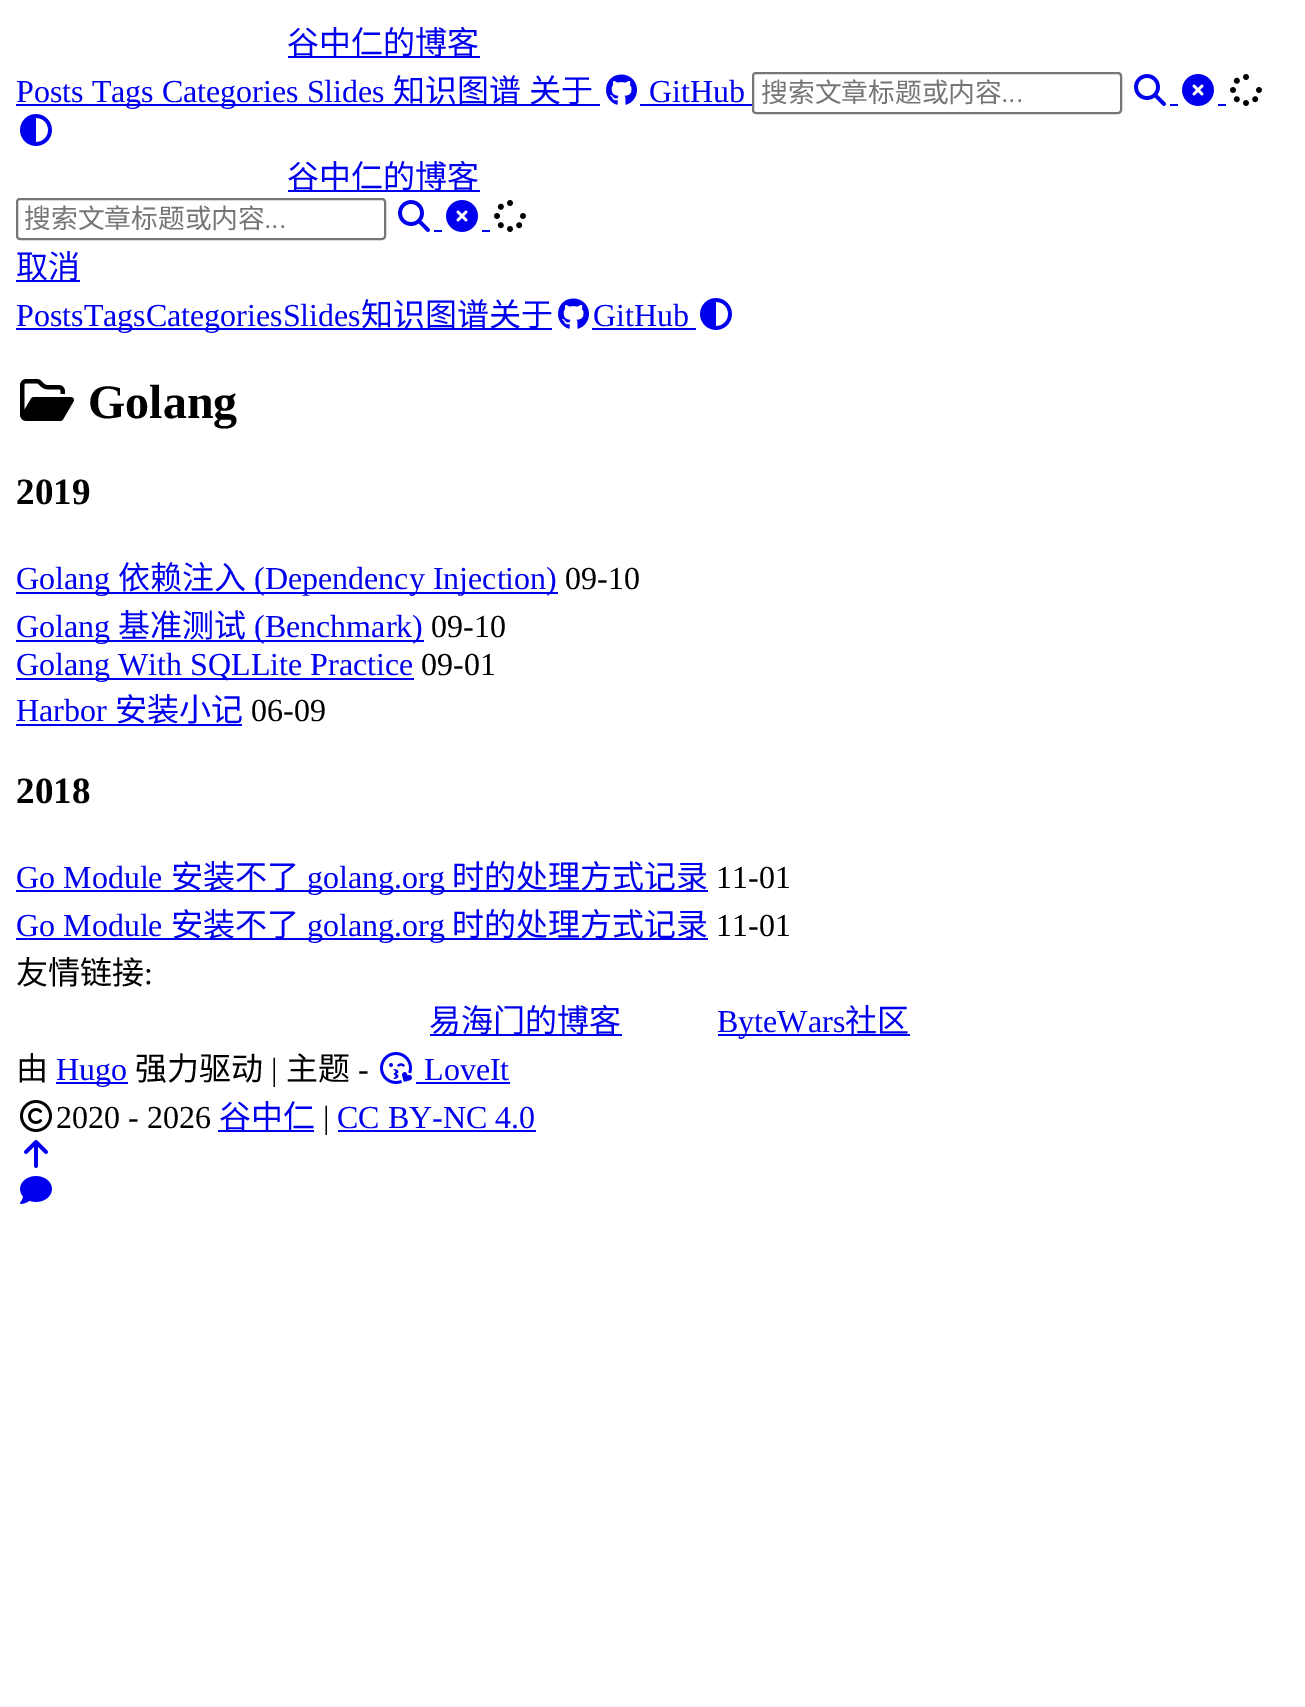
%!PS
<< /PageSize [1305 1707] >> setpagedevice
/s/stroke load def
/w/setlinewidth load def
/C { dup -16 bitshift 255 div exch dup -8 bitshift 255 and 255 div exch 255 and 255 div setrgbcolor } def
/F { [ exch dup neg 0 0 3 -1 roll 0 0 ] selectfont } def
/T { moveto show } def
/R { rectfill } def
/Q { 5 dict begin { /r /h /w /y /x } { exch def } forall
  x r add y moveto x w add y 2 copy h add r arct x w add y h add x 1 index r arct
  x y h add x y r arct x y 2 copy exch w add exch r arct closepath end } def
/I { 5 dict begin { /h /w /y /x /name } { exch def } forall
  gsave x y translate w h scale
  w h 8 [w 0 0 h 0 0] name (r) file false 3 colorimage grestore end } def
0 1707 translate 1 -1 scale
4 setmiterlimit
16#FFFFFF C
0 0 1305 1707 R
16#0000EE C
288 56 192 2 R
/NotoSansCJKSC-Regular 32 F
(谷中仁的博客) 287 54 T
16 104 584 2 R
/LiberationSerif-Regular 32 F
(Posts Tags Categories Slides) 16 102 T
/NotoSansCJKSC-Regular 32 F
(知识图谱) 393 102 T
(关于) 529 102 T
(1.rgb) 606 74 31 31 I
/LiberationSerif-Regular 32 F
(GitHub) 649 102 T
640 104 112 2 R
16#767676 C
2 w
753 73 368 40 3 Q s
/NotoSansCJKSC-Regular 26.75 F
16#757575 C
(搜索文章标题或内容) 761 102 T
/LiberationSans-Regular 26.75 F
(...) 1001 102 T
(2.rgb) 1134 74 32 32 I
16#0000EE C
1170 104 8 2 R
(3.rgb) 1182 74 32 32 I
1218 104 8 2 R
(4.rgb) 1230 74 32 32 I
(5.rgb) 20 114 32 32 I
288 190 192 2 R
/NotoSansCJKSC-Regular 32 F
(谷中仁的博客) 287 188 T
16#767676 C
17 199 368 40 3 Q s
/NotoSansCJKSC-Regular 26.75 F
16#757575 C
(搜索文章标题或内容) 24 228 T
/LiberationSans-Regular 26.75 F
(...) 264 228 T
(2.rgb) 398 200 32 32 I
16#0000EE C
434 230 8 2 R
(3.rgb) 446 200 32 32 I
482 230 8 2 R
(4.rgb) 494 200 32 32 I
16 280 64 2 R
/NotoSansCJKSC-Regular 32 F
(取消) 16 278 T
16 328 536 2 R
/LiberationSerif-Regular 32 F
(PostsTagsCategoriesSlides) 16 326 T
/NotoSansCJKSC-Regular 32 F
(知识图谱关于) 361 326 T
(1.rgb) 558 298 31 31 I
/LiberationSerif-Regular 32 F
(GitHub) 593 326 T
592 328 104 2 R
(5.rgb) 700 298 32 32 I
(6.rgb) 20 379 54 42 I
/LiberationSerif-Bold 48 F
16#000000 C
(Golang) 88 418 T
/LiberationSerif-Bold 37 F
(2019) 16 504 T
16#0000EE C
16 592 542 2 R
/LiberationSerif-Regular 32 F
(Golang) 16 589 T
/NotoSansCJKSC-Regular 32 F
(依赖注入) 118 589 T
/LiberationSerif-Regular 32 F
(\(Dependency Injection\)) 254 589 T
16#000000 C
(09-10) 565 589 T
16#0000EE C
16 640 408 2 R
(Golang) 16 637 T
/NotoSansCJKSC-Regular 32 F
(基准测试) 118 637 T
/LiberationSerif-Regular 32 F
(\(Benchmark\)) 254 637 T
16#000000 C
(09-10) 431 637 T
16#0000EE C
16 678 398 2 R
(Golang With SQLLite Practice) 16 675 T
16#000000 C
(09-01) 421 675 T
16#0000EE C
(Harbor) 16 721 T
16 724 226 2 R
/NotoSansCJKSC-Regular 32 F
(安装小记) 115 721 T
/LiberationSerif-Regular 32 F
16#000000 C
(06-09) 251 721 T
/LiberationSerif-Bold 37 F
(2018) 16 803 T
/LiberationSerif-Regular 32 F
16#0000EE C
(Go Module) 16 888 T
16 890 692 2 R
/NotoSansCJKSC-Regular 32 F
(安装不了) 171 888 T
/LiberationSerif-Regular 32 F
(golang.org) 307 888 T
/NotoSansCJKSC-Regular 32 F
(时的处理方式记录) 452 888 T
/LiberationSerif-Regular 32 F
16#000000 C
(11-01) 716 888 T
16#0000EE C
(Go Module) 16 936 T
16 938 692 2 R
/NotoSansCJKSC-Regular 32 F
(安装不了) 171 936 T
/LiberationSerif-Regular 32 F
(golang.org) 307 936 T
/NotoSansCJKSC-Regular 32 F
(时的处理方式记录) 452 936 T
/LiberationSerif-Regular 32 F
16#000000 C
(11-01) 716 936 T
/NotoSansCJKSC-Regular 32 F
(友情链接) 16 984 T
/LiberationSerif-Regular 32 F
(:) 144 984 T
16#0000EE C
430 1034 192 2 R
/NotoSansCJKSC-Regular 32 F
(易海门的博客) 429 1032 T
718 1034 192 2 R
/LiberationSerif-Regular 32 F
(ByteWars) 717 1032 T
/NotoSansCJKSC-Regular 32 F
(社区) 845 1032 T
16#000000 C
(由) 16 1080 T
16#0000EE C
56 1082 72 2 R
/LiberationSerif-Regular 32 F
(Hugo) 56 1080 T
/NotoSansCJKSC-Regular 32 F
16#000000 C
(强力驱动) 135 1080 T
/LiberationSerif-Regular 32 F
(|) 271 1080 T
/NotoSansCJKSC-Regular 32 F
(主题) 286 1080 T
/LiberationSerif-Regular 32 F
(-) 358 1080 T
(7.rgb) 380 1052 32 32 I
16#0000EE C
(LoveIt) 424 1080 T
416 1082 94 2 R
(8.rgb) 20 1100 32 32 I
16#000000 C
(2020 - 2026) 56 1128 T
16#0000EE C
218 1130 96 2 R
/NotoSansCJKSC-Regular 32 F
(谷中仁) 219 1128 T
/LiberationSerif-Regular 32 F
16#000000 C
(|) 323 1128 T
16#0000EE C
(CC BY-NC 4.0) 337 1128 T
338 1130 198 2 R
(9.rgb) 24 1140 24 28 I
(10.rgb) 20 1176 32 28 I
showpage
